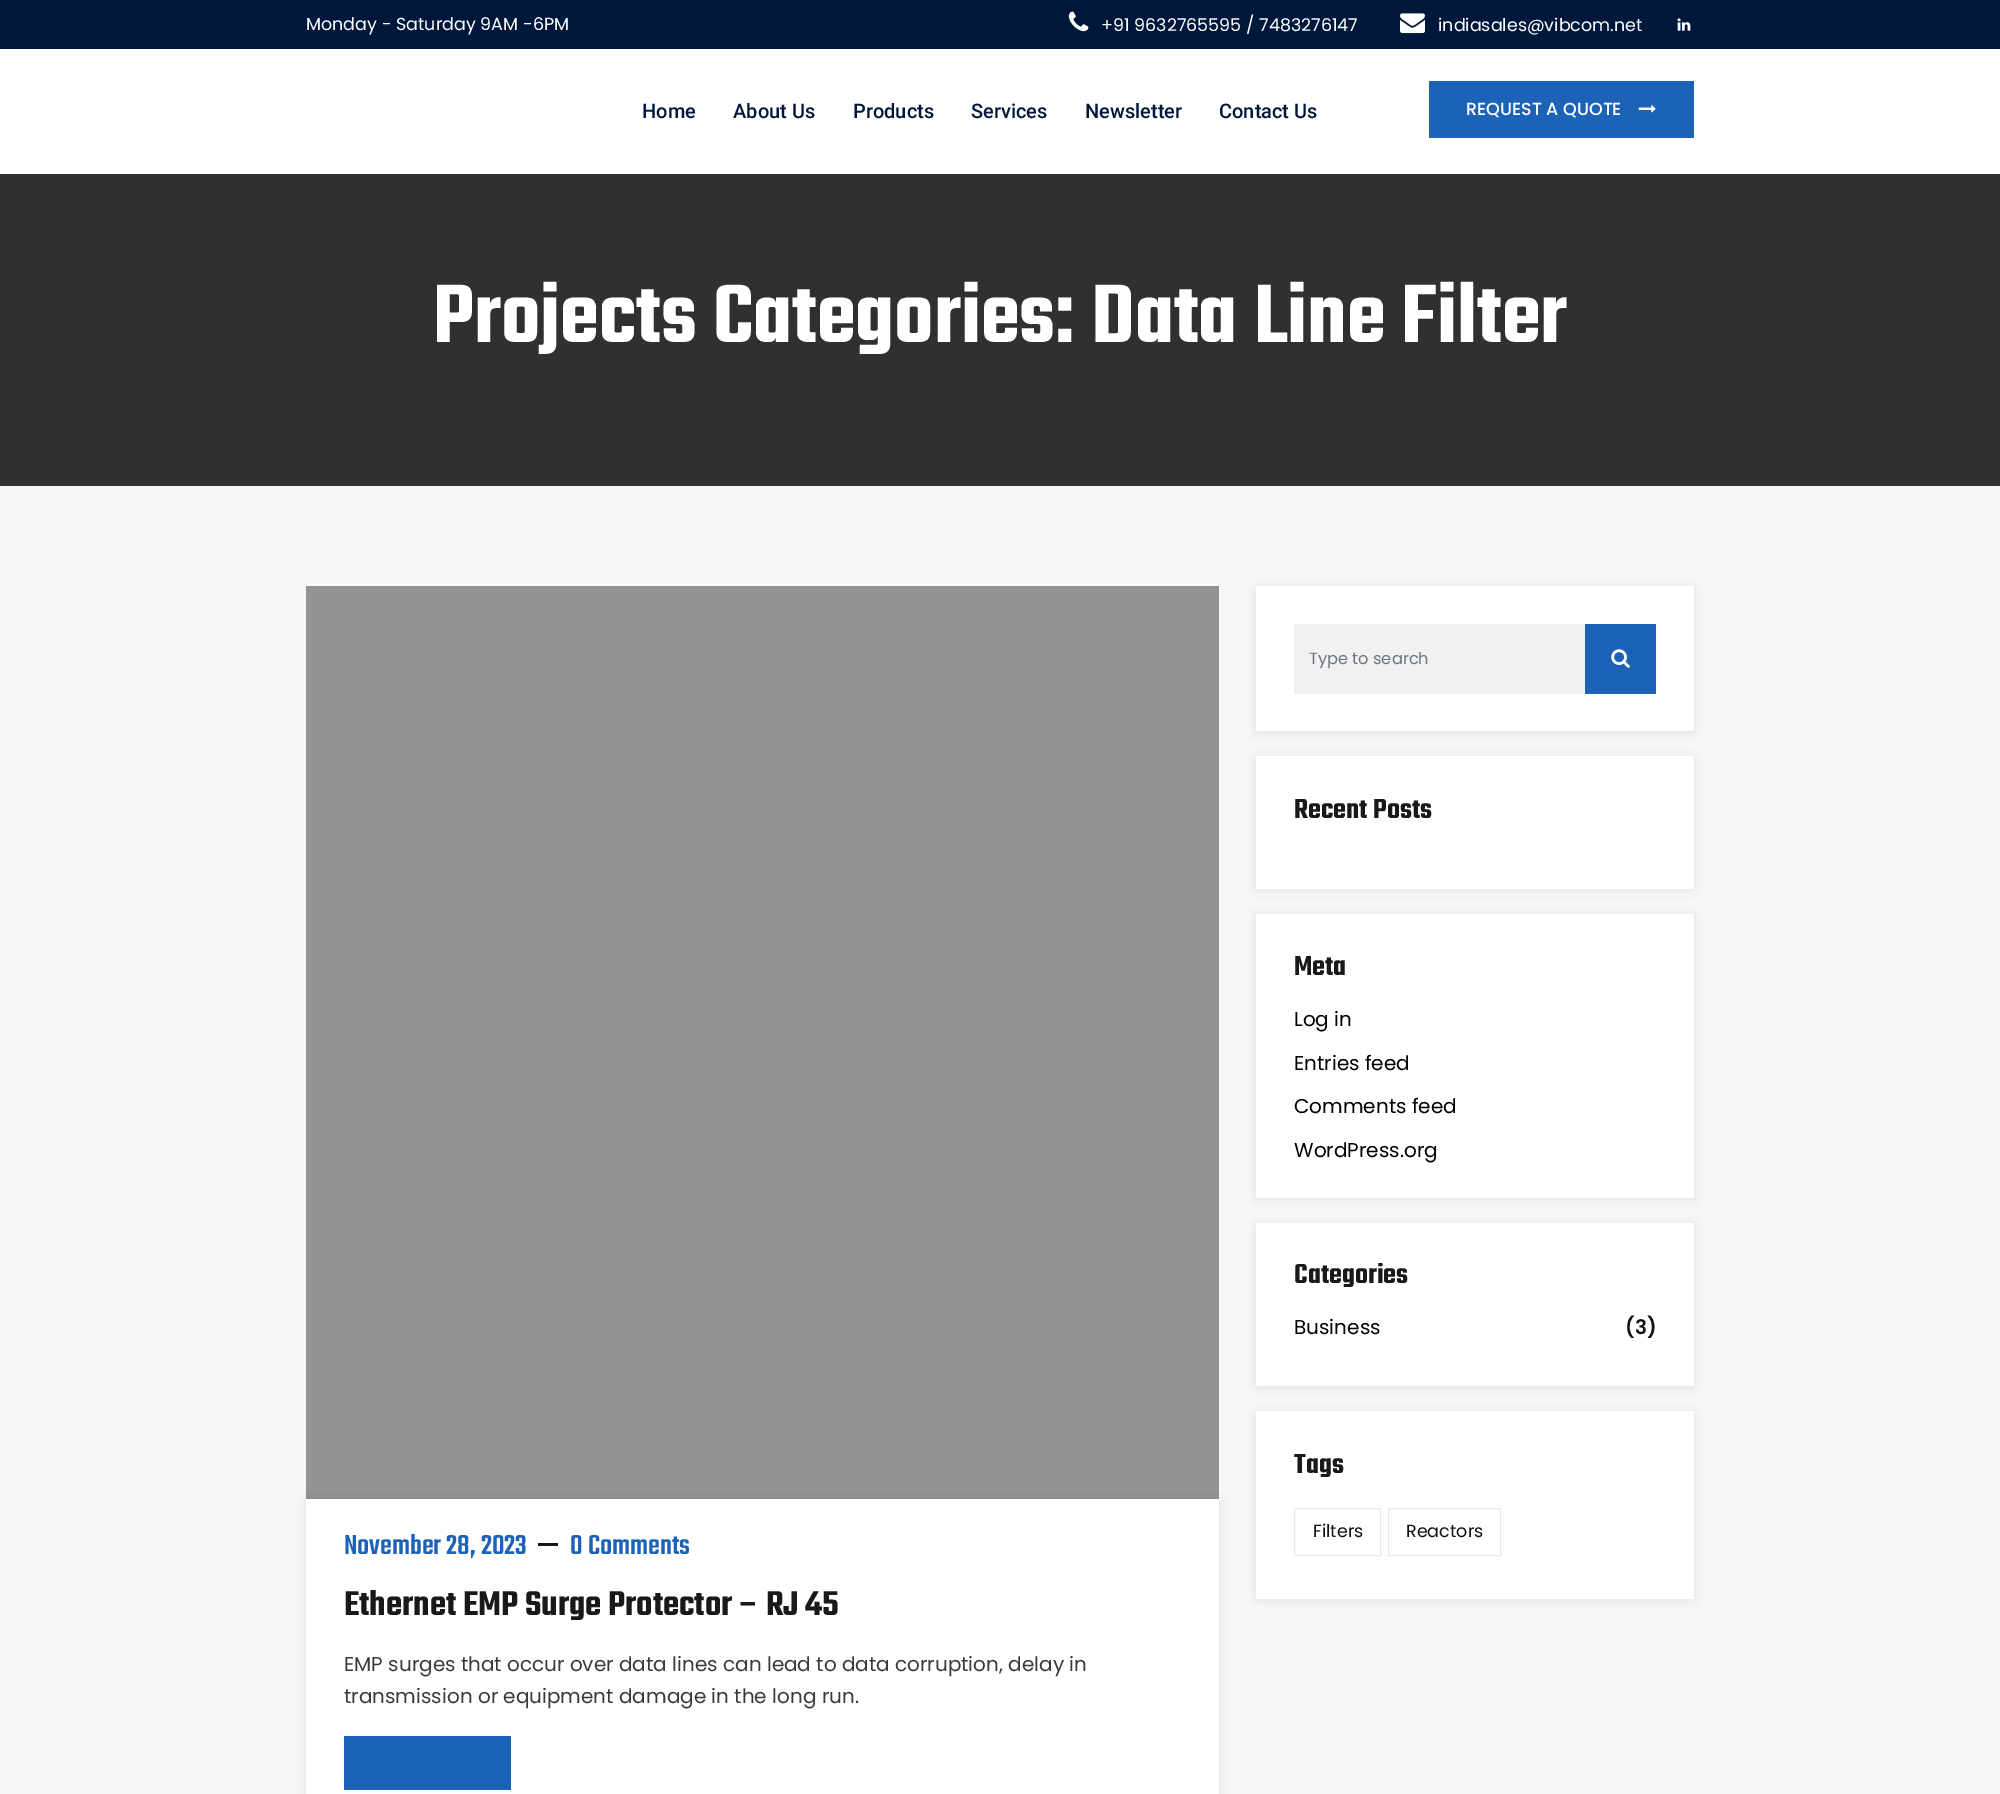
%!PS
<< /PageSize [2000 1794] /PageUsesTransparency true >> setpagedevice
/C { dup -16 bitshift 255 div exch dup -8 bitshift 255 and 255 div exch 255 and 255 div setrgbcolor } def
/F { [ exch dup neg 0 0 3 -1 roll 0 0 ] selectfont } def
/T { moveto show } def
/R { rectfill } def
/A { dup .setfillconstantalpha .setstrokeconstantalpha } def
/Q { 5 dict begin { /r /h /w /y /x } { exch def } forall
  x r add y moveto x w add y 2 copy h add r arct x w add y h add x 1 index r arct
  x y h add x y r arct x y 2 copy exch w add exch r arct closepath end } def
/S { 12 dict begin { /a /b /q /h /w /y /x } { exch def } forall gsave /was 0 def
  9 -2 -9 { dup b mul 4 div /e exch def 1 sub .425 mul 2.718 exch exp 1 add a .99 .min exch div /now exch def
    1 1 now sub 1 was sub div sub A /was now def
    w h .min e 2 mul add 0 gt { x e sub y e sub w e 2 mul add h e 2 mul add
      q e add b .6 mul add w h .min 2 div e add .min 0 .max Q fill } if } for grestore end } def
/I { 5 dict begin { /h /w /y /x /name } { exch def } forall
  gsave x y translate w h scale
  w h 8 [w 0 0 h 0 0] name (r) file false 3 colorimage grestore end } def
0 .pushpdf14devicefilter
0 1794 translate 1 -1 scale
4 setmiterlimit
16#FFFFFF C
0 0 2000 1794 R
16#00173C C
0 0 2000 49 R
/Poppins-Regular 17.5 F
16#FFFFFF C
(Monday - Saturday 9AM -6PM) 306 30 T
(1.rgb) 1068 11 21 21 I
(+91 9632765595 / 7483276147) 1101 31 T
(2.rgb) 1400 13 25 21 I
(indiasales@vibcom.net) 1438 31 T
(3.rgb) 1677 18 14 13 I
/Roboto-Medium 20 F
16#00173C C
(Home) 642 118 T
(About Us) 733 118 T
(Products) 853 118 T
(Services) 971 118 T
(Newsletter) 1085 118 T
(Contact Us) 1219 118 T
16#1C63B8 C
1429 81 265 57 R
/Poppins-Medium 17.5 F
16#FFFFFF C
(REQUEST A QUOTE) 1466 115 T
(4.rgb) 1638 105 18 8 I
16#303030 C
0 174 2000 312 R
/Teko-SemiBold 90 F
16#FFFFFF C
(Projects Categories: Data Line Filter) 433 342 T
16#F7F7F7 C
0 486 2000 1308 R
16#000000 C
1256 588 438 145 0 5 .08 S
16#FFFFFF C
1256 586 438 145 R
16#F1F1F1 C
1294 624 291 70 R
/Poppins-Regular 16.25 F
16#6C757D C
(Type to search) 1309 664 T
16#1C63B8 C
1585 624 71 70 R
(5.rgb) 1611 649 19 19 I
16#000000 C
1256 758 438 132 0 5 .08 S
16#FFFFFF C
1256 756 438 133 R
/Teko-SemiBold 30 F
16#191919 C
(Recent Posts) 1294 818 T
16#000000 C
1256 915 438 284 0 5 .08 S
16#FFFFFF C
1256 914 438 284 R
16#191919 C
(Meta) 1294 975 T
/Poppins-Regular 20 F
16#000000 C
(Log in) 1294 1026 T
(Entries feed) 1294 1070 T
(Comments feed) 1294 1113 T
(WordPress.org) 1294 1157 T
1256 1224 438 164 0 5 .08 S
16#FFFFFF C
1256 1223 438 163 R
/Teko-SemiBold 30 F
16#191919 C
(Categories) 1294 1283 T
/Poppins-Regular 20 F
16#000000 C
(Business) 1294 1334 T
/Poppins-SemiBold 20 F
16#111111 C
(\(3\)) 1625 1334 T
16#000000 C
1256 1413 438 187 0 5 .08 S
16#FFFFFF C
1256 1411 438 188 R
/Teko-SemiBold 30 F
16#191919 C
(Tags) 1294 1473 T
16#E8E8E8 C
1294.5 1508.5 86 47 rectstroke
/Poppins-Regular 17.5 F
16#111111 C
(Filters) 1313 1537 T
16#E8E8E8 C
1388.5 1508.5 112 47 rectstroke
16#111111 C
(Reactors) 1406 1537 T
16#939393 C
306 586 913 913 R
16#000000 C
306 1500 913 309 0 5 .08 S
16#FFFFFF C
306 1499 913 295 R
/Teko-Medium 30 F
16#1C63B8 C
(November 28, 2023) 344 1554 T
16#191919 C
538 1543 20 3 R
16#1C63B8 C
(0 Comments) 570 1554 T
/Teko-SemiBold 37.5 F
16#191919 C
(Ethernet EMP Surge Protector – RJ 45) 344 1615 T
/Poppins-Regular 20 F
16#3A3A3A C
(EMP surges that occur over data lines can lead to data corruption, delay in) 344 1671 T
(transmission or equipment damage in the long run.) 344 1703 T
16#1C63B8 C
344 1736 167 54 R
.poppdf14devicefilter showpage
